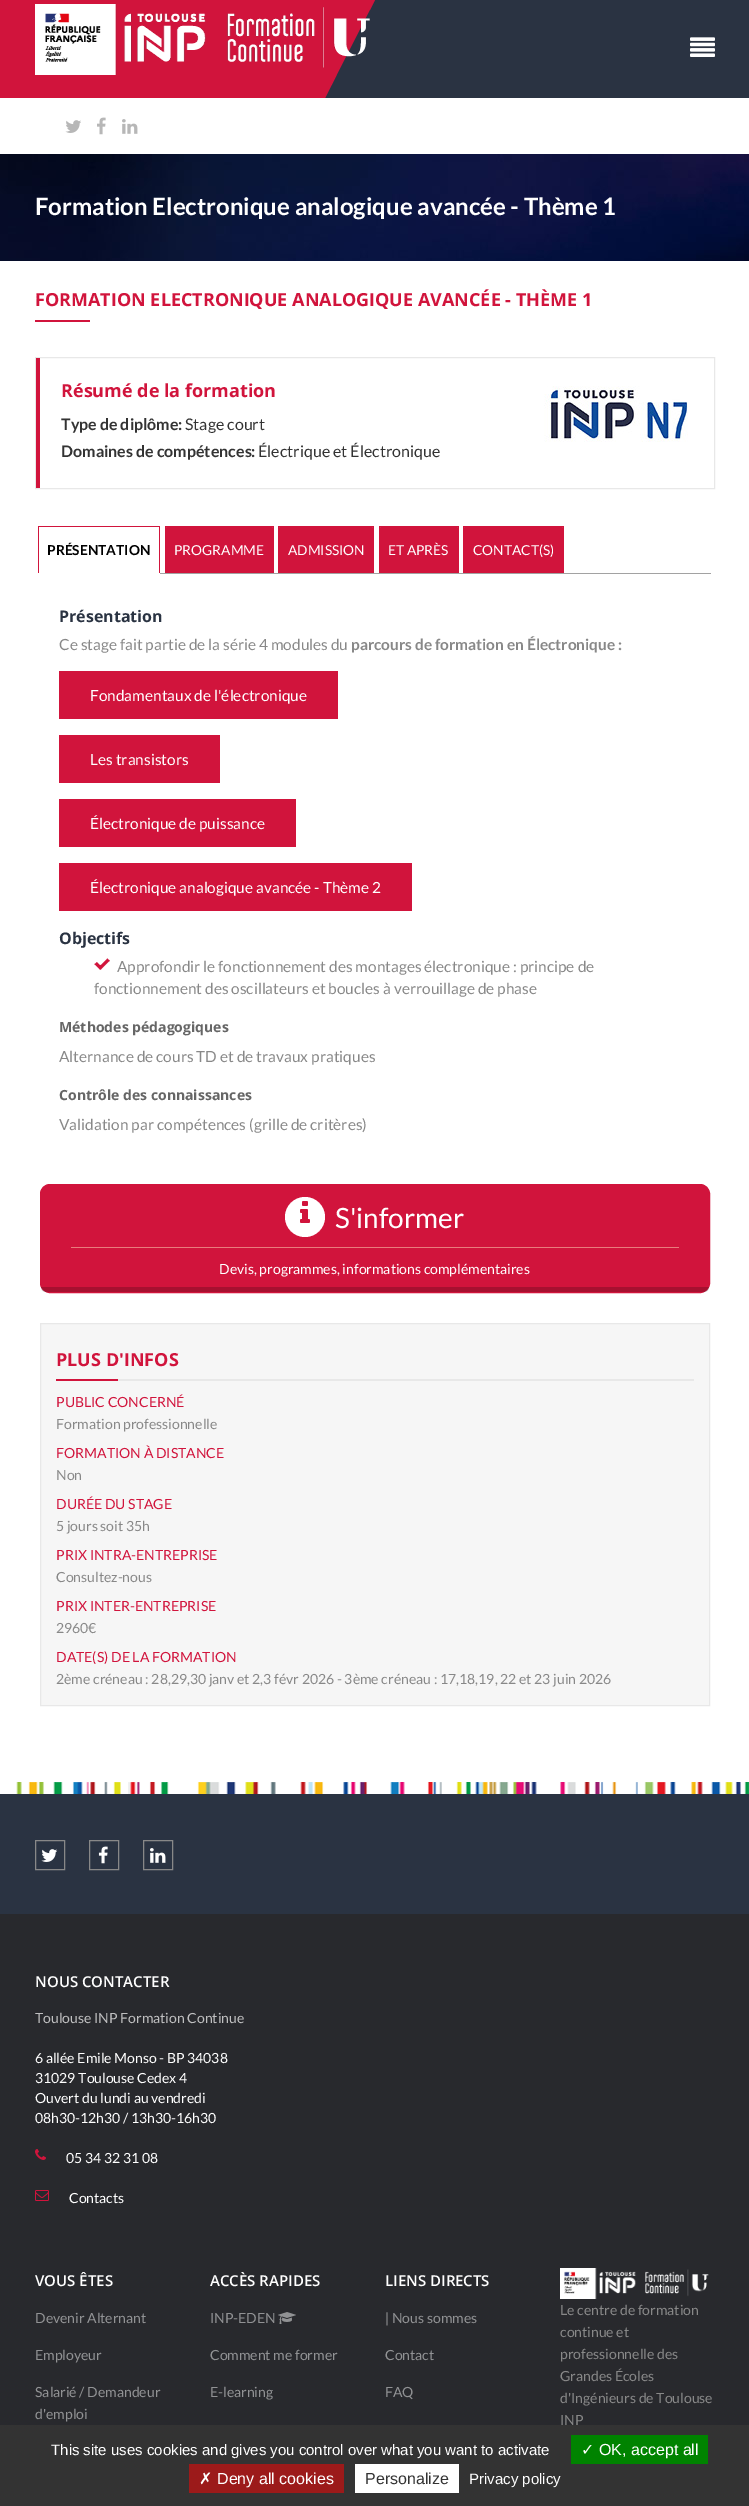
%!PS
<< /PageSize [749 2506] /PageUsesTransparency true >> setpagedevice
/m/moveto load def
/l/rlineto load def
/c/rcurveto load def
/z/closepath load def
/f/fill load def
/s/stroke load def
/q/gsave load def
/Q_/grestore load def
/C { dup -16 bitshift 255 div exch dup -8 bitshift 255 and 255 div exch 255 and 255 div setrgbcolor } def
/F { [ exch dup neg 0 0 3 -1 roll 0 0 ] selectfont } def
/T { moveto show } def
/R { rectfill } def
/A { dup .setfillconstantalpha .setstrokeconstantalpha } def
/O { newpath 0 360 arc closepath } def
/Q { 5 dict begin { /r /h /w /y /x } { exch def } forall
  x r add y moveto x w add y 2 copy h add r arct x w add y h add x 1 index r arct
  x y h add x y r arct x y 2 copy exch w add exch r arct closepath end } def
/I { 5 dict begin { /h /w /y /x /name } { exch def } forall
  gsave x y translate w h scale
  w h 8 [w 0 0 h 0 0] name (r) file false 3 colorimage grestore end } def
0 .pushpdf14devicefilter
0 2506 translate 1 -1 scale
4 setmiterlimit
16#FFFFFF C
0 0 749 2506 R
16#2A3342 C
325 0 424 98 R
16#D1143C C
0 0 325 98 R
325 0 m 50 0 l -50 98 l z f
(1.rgb) 35 4 335 71 I
(2.rgb) 690 37 25 20 I
(3.rgb) 65 120 16 13 I
(4.rgb) 97 117 9 18 I
(5.rgb) 122 119 16 15 I
(6.rgb) 0 154 749 107 I
/Lato-Bold 24 F
16#FFFFFF C
(Formation Electronique analogique avancée - Thème 1) 35 215 T
/OpenSans-Bold 18 F
16#D1143C C
(FORMATION ELECTRONIQUE ANALOGIQUE AVANCÉE - THÈME 1) 35 306 T
35 320 55 2 R
16#E8E8E8 C
35.5 357.5 679 131 rectstroke
16#D1143C C
36 358 4 130 R
(Résumé de la formation) 61 397 T
(7.rgb) 544 386 144 56 I
/Lato-Bold 16 F
16#333333 C
(Type de diplôme:) 61 430 T
/Lato-Regular 16 F
(Stage court) 185 430 T
/Lato-Bold 16 F
(Domaines de compétences:) 61 457 T
/Lato-Regular 16 F
(Électrique et Électronique) 258 457 T
16#A2A2A2 C
160 573 551 1 R
16#D1143C C
38 526 122 1 R
159 526 1 47 R
38 526 1 47 R
/Lato-Bold 13.75 F
16#000000 C
(PRÉSENTATION) 47 555 T
16#D1143C C
169 526 m 101 0 l 2 0 4 2 4 4 c 0 43 l -109 0 l 0 -43 l 0 -2 2 -4 4 -4 c z f
165 526 109 1 R
273 526 1 4 R
165 526 1 4 R
/Lato-Regular 13.75 F
16#FFFFFF C
(PROGRAMME) 174 555 T
16#D1143C C
282 526 m 88 0 l 2 0 4 2 4 4 c 0 43 l -96 0 l 0 -43 l 0 -2 2 -4 4 -4 c z f
278 526 96 1 R
373 526 1 4 R
278 526 1 4 R
16#FFFFFF C
(ADMISSION) 288 555 T
16#D1143C C
383 526 m 72 0 l 2 0 4 2 4 4 c 0 43 l -80 0 l 0 -43 l 0 -2 2 -4 4 -4 c z f
379 526 80 1 R
458 526 1 4 R
379 526 1 4 R
16#FFFFFF C
(ET APRÈS) 388 555 T
16#D1143C C
467 526 m 93 0 l 2 0 4 2 4 4 c 0 43 l -101 0 l 0 -43 l 0 -2 2 -4 4 -4 c z f
463 526 101 1 R
563 526 1 4 R
463 526 1 4 R
16#FFFFFF C
(CONTACT\(S\)) 473 555 T
/OpenSans-Bold 16 F
16#2A3342 C
(Présentation) 59 622 T
/Lato-Regular 15.4 F
16#888888 C
(Ce stage fait partie de la série 4 modules du) 59 650 T
/Lato-Bold 15.4 F
(parcours de formation en Électronique :) 351 650 T
16#D1143C C
59 671 279 48 R
/Lato-Regular 15.4 F
16#FFFFFF C
(Fondamentaux de l'électronique) 90 701 T
16#D1143C C
59 735 161 48 R
16#FFFFFF C
(Les transistors) 90 765 T
16#D1143C C
59 799 237 48 R
16#FFFFFF C
(Électronique de puissance) 90 829 T
16#D1143C C
59 863 353 48 R
16#FFFFFF C
(Électronique analogique avancée - Thème 2) 90 893 T
/OpenSans-Bold 16 F
16#2A3342 C
(Objectifs) 59 944 T
(8.rgb) 94 958 16 12 I
/Lato-Regular 15.4 F
16#888888 C
(Approfondir le fonctionnement des montages électronique : principe de) 117 972 T
(fonctionnement des oscillateurs et boucles à verrouillage de phase) 94 994 T
/OpenSans-Bold 14 F
16#666666 C
(Méthodes pédagogiques) 59 1032 T
/Lato-Regular 15.4 F
16#888888 C
(Alternance de cours TD et de travaux pratiques) 59 1062 T
/OpenSans-Bold 14 F
16#666666 C
(Contrôle des connaissances) 59 1100 T
/Lato-Regular 15.4 F
16#888888 C
(Validation par compétences \(grille de critères\)) 59 1130 T
16#D1143C C
40.5 1184.5 669 108 9.5 Q q f Q_
s
16#E97C7C C
71 1247 608 1 R
16#FFFFFF C
305 1217 20 O f
(9.rgb) 300 1201 10 22 I
/Lato-Regular 28 F
(S'informer) 335 1228 T
/Lato-Regular 14 F
(Devis, programmes, informations complémentaires) 219 1274 T
0.2 A
16#000000 C
41 1287 m 668 0 l 0 3 -2 5 -5 5 c -658 0 l -3 0 -5 -2 -5 -5 c z f
1 A
16#F6F6F6 C
40.5 1323.5 m 669 0 l 0 382 l -669 0 l z q f Q_
16#E8E8E8 C
s
118 1379 576 2 R
/OpenSans-Bold 18 F
16#D1143C C
(PLUS D'INFOS) 56 1366 T
56 1379 62 2 R
/Lato-Regular 14 F
(PUBLIC CONCERNÉ) 56 1407 T
16#888888 C
(Formation professionnelle) 56 1429 T
16#D1143C C
(FORMATION À DISTANCE) 56 1458 T
16#888888 C
(Non) 56 1480 T
16#D1143C C
(DURÉE DU STAGE) 56 1509 T
16#888888 C
(5 jours soit 35h) 56 1531 T
16#D1143C C
(PRIX INTRA-ENTREPRISE) 56 1560 T
16#888888 C
(Consultez-nous) 56 1582 T
16#D1143C C
(PRIX INTER-ENTREPRISE) 56 1611 T
16#888888 C
(2960€) 56 1633 T
16#D1143C C
(DATE\(S\) DE LA FORMATION) 56 1662 T
16#888888 C
(2ème créneau : 28,29,30 janv et 2,3 févr 2026 - 3ème créneau : 17,18,19, 22 et 23 juin 2026) 56 1684 T
(10.rgb) 16 1782 733 12 I
16#2A3342 C
0 1794 749 120 R
16#888888 C
35.5 1840.5 29 29 rectstroke
(11.rgb) 41 1849 17 13 I
89.5 1840.5 29 29 rectstroke
(12.rgb) 98 1846 10 18 I
143.5 1840.5 29 29 rectstroke
(13.rgb) 150 1848 16 15 I
16#28292D C
0 1914 749 511 R
/OpenSans-SemiBold 15 F
16#FFFFFF C
(NOUS CONTACTER) 35 1987 T
/Lato-Regular 14 F
16#BFBFC0 C
(Toulouse INP Formation Continue) 35 2023 T
16#FFFFFF C
(6 allée Emile Monso - BP 34038) 35 2063 T
(31029 Toulouse Cedex 4) 35 2083 T
(Ouvert du lundi au vendredi) 35 2103 T
(08h30-12h30 / 13h30-16h30) 35 2123 T
(14.rgb) 35 2149 11 11 I
(05 34 32 31 08) 66 2163 T
(15.rgb) 35 2190 14 11 I
(Contacts) 69 2203 T
/OpenSans-SemiBold 15 F
(VOUS ÊTES) 35 2286 T
/Lato-Regular 14 F
16#919294 C
(Devenir Alternant) 35 2323 T
(Employeur) 35 2360 T
(Salarié / Demandeur) 35 2397 T
(d'emploi) 35 2419 T
/OpenSans-SemiBold 15 F
16#FFFFFF C
(ACCÈS RAPIDES) 210 2286 T
/Lato-Regular 14 F
16#919294 C
(INP-EDEN) 210 2323 T
(16.rgb) 278 2312 18 12 I
(Comment me former) 210 2360 T
(E-learning) 210 2397 T
/OpenSans-SemiBold 15 F
16#FFFFFF C
(LIENS DIRECTS) 385 2286 T
/Lato-Regular 14 F
16#919294 C
(| Nous sommes) 385 2323 T
(Contact) 385 2360 T
(FAQ) 385 2397 T
(17.rgb) 560 2268 149 31 I
16#888888 C
(Le centre de formation) 560 2315 T
(continue et) 560 2337 T
(professionnelle des) 560 2359 T
(Grandes Écoles) 560 2381 T
(d'Ingénieurs de Toulouse) 560 2403 T
(INP) 560 2425 T
16#333333 C
0 2425 749 81 R
/LiberationSans-Regular 15 F
16#FFFFFF C
(This site uses cookies and gives you control over what you want to activate) 51 2455 T
16#008300 C
571 2435 137 29 R
/DejaVuSans-Regular 16 F
16#FFFFFF C
(✓) 581 2455 T
/LiberationSans-Regular 16 F
(OK, accept all) 599 2455 T
16#9C1A1A C
189 2464 155 29 R
/DejaVuSans-Regular 16 F
16#FFFFFF C
(✗) 199 2484 T
/LiberationSans-Regular 16 F
(Deny all cookies) 217 2484 T
355 2464 104 29 R
16#333333 C
(Personalize) 365 2484 T
/LiberationSans-Regular 15 F
16#FFFFFF C
(Privacy policy) 469 2484 T
.poppdf14devicefilter showpage
